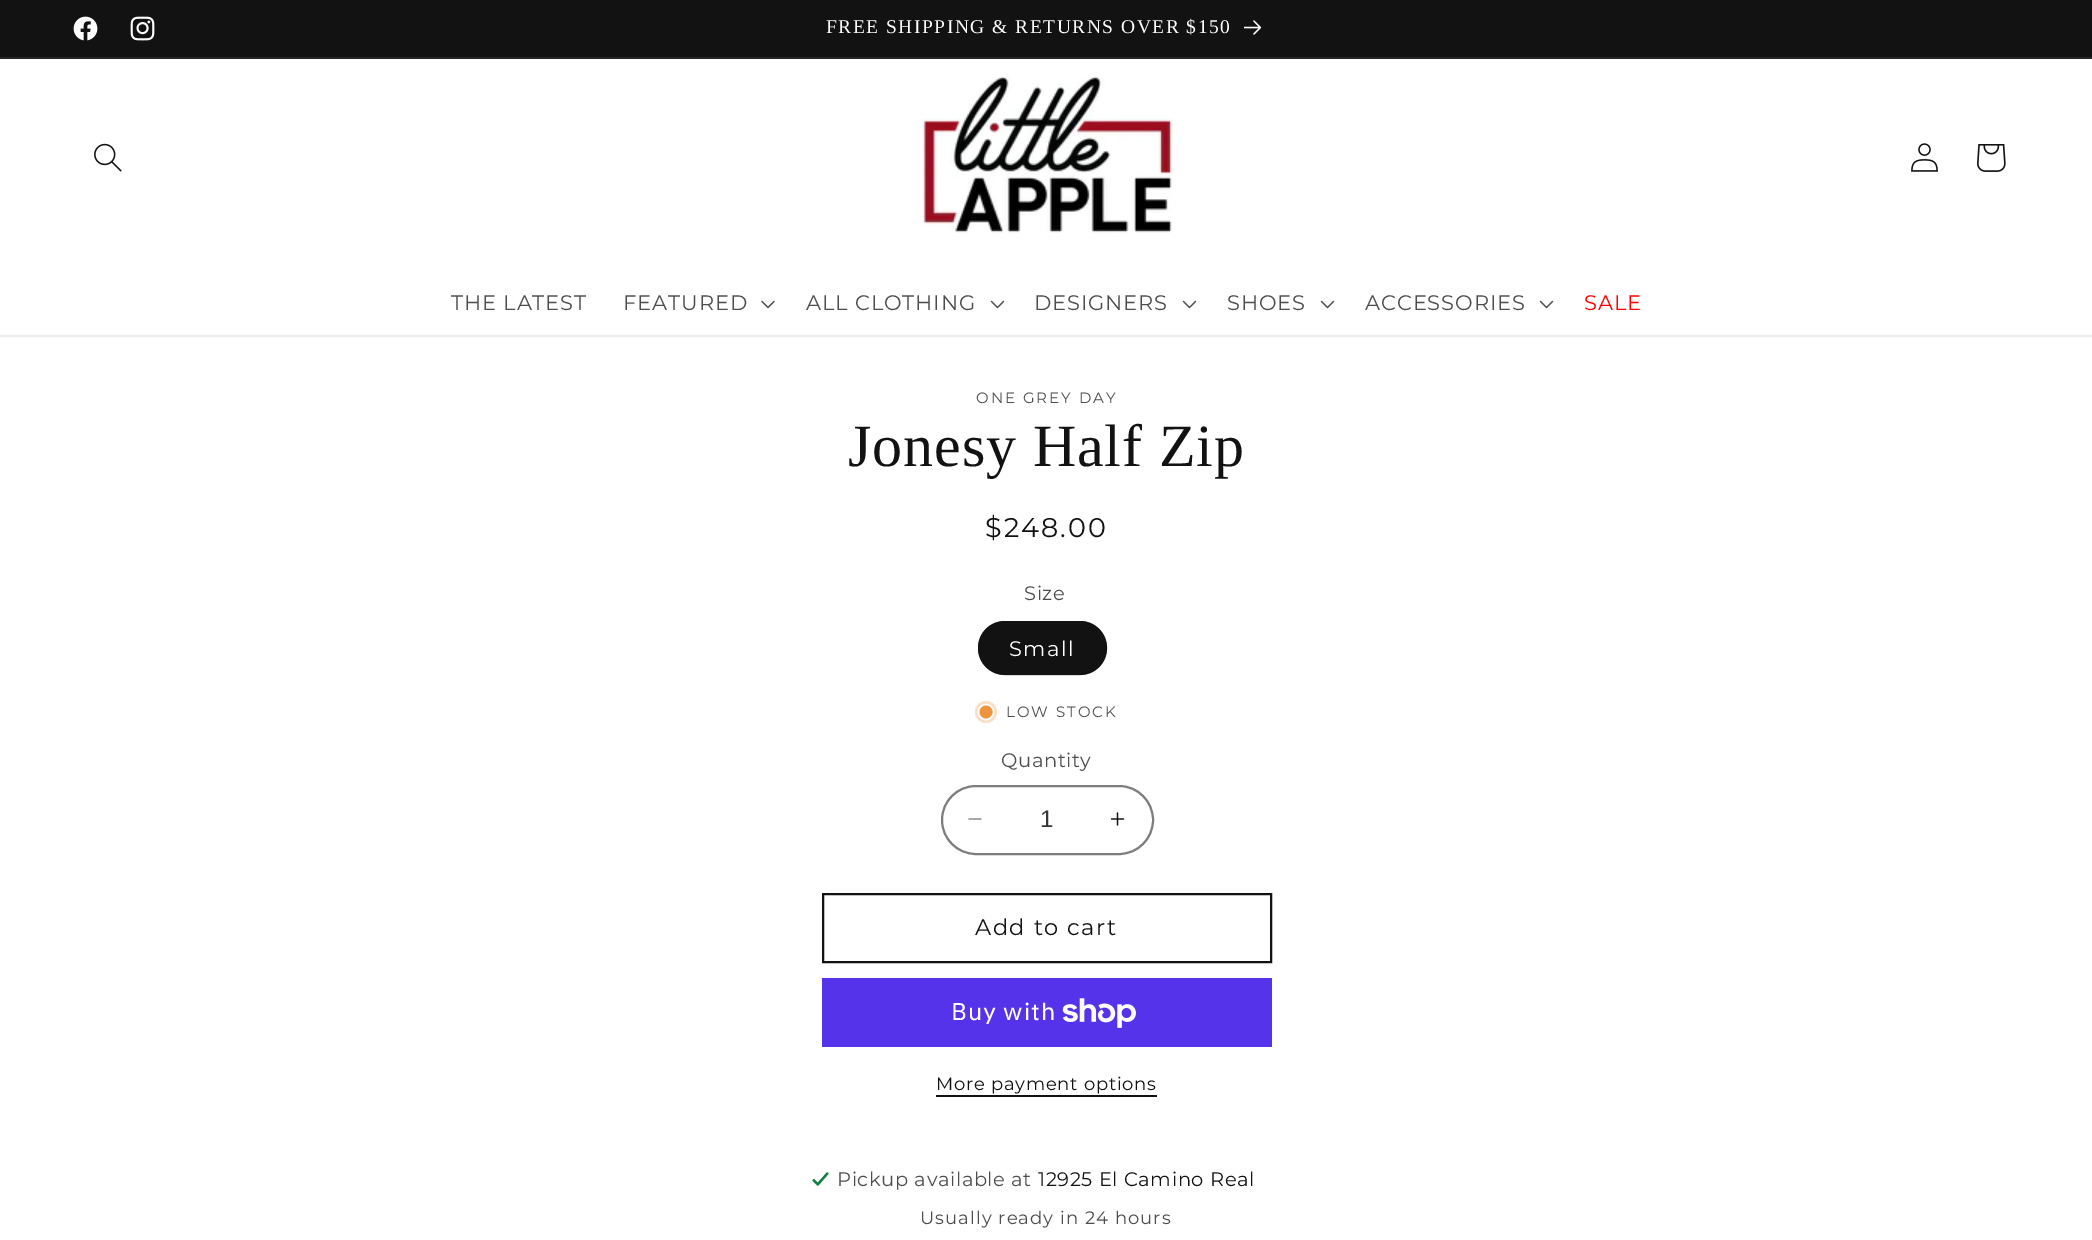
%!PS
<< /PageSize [2092 1240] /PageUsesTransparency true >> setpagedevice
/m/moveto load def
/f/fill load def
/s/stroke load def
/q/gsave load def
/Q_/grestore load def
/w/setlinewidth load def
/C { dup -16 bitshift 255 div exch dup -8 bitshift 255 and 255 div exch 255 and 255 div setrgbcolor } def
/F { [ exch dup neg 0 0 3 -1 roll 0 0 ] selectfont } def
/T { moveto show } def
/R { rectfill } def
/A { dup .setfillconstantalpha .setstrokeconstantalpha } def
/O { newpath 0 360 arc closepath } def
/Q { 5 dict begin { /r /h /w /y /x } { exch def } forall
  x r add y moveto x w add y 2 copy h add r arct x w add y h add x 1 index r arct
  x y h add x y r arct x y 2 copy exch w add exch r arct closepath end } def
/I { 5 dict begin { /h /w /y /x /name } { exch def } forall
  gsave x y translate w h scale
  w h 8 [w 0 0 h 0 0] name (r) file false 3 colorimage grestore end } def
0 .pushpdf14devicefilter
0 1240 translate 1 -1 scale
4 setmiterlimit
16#FFFFFF C
0 0 2092 1240 R
16#121212 C
0 0 2092 57 R
16#252525 C
0 57 2092 2 R
(1.rgb) 73 16 25 25 I
(2.rgb) 130 16 25 25 I
/LiberationSerif-Regular 19.5 F
16#FFFFFF C
826 33 m 1.5 0 (FREE SHIPPING & RETURNS OVER $150) ashow
(3.rgb) 1244 20 18 15 I
16#ECECEC C
0 335 2092 2 R
(4.rgb) 94 143 28 29 I
(5.rgb) 922 76 254 157 I
(6.rgb) 1911 143 27 29 I
(7.rgb) 1977 144 29 28 I
/Montserrat-Regular 21 F
16#4D4D4D C
451 310 m .9 0 (THE LATEST) ashow
623 310 m .9 0 (FEATURED) ashow
(8.rgb) 761 300 14 9 I
806 310 m .9 0 (ALL CLOTHING) ashow
(9.rgb) 990 300 15 9 I
1034 310 m .9 0 (DESIGNERS) ashow
(9.rgb) 1182 300 15 9 I
1227 310 m .9 0 (SHOES) ashow
(9.rgb) 1320 300 15 9 I
1365 310 m .9 0 (ACCESSORIES) ashow
(9.rgb) 1539 300 15 9 I
16#FF0000 C
1584 310 m .9 0 (SALE) ashow
/Montserrat-Regular 15 F
16#4D4D4D C
976 403 m 2 0 (ONE GREY DAY) ashow
/LiberationSerif-Regular 60 F
16#121212 C
848 466 m .9 0 (Jonesy Half Zip) ashow
/Montserrat-Regular 27 F
985 537 m 2 0 ($248.00) ashow
/Montserrat-Regular 19.5 F
16#4D4D4D C
1024 600 m .6 0 (Size) ashow
16#121212 C
978 621 129 54 27 Q f
0.55 A
2 w
979 622 127 52 26 Q s
/Montserrat-Regular 21 F
1 A
16#FFFFFF C
1009 656 m 1.5 0 (Small) ashow
16#FADFC6 C
986 712 11 O f
16#EE9441 C
986 712 7.5 O q f Q_
16#FFFFFF C
1.5 w
s
/Montserrat-Regular 15 F
16#4D4D4D C
1006 717 m 2 0 (LOW STOCK) ashow
/Montserrat-Regular 19.5 F
1001 767 m .6 0 (Quantity) ashow
(10.rgb) 968 818 14 2 I
(11.rgb) 1110 812 15 14 I
16#7D7D7D C
2 w
942 786 211 68 34 Q s
/LiberationSans-Regular 24 F
16#363636 C
(1) 1040 827 T
16#121212 C
823 894 448 68 rectstroke
/Montserrat-Regular 22.5 F
975 935 m 1.5 0 (Add to cart) ashow
16#5433EB C
822 978 450 69 R
/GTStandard-Regular 24 F
16#FFFFFF C
951 1020 m .9 0 (Buy with) ashow
(12.rgb) 1062 998 74 30 I
/Montserrat-Regular 18 F
16#121212 C
936 1090 m .75 0 (More payment options) ashow
936 1095 221 2 R
(13.rgb) 811 1172 18 14 I
/Montserrat-Regular 19.5 F
16#4D4D4D C
837 1186 m .6 0 (Pickup available at) ashow
16#121212 C
1038 1186 m .6 0 (12925 El Camino Real) ashow
/Montserrat-Regular 18 F
16#4D4D4D C
920 1224 m 1.05 0 (Usually ready in 24 hours) ashow
.poppdf14devicefilter showpage
